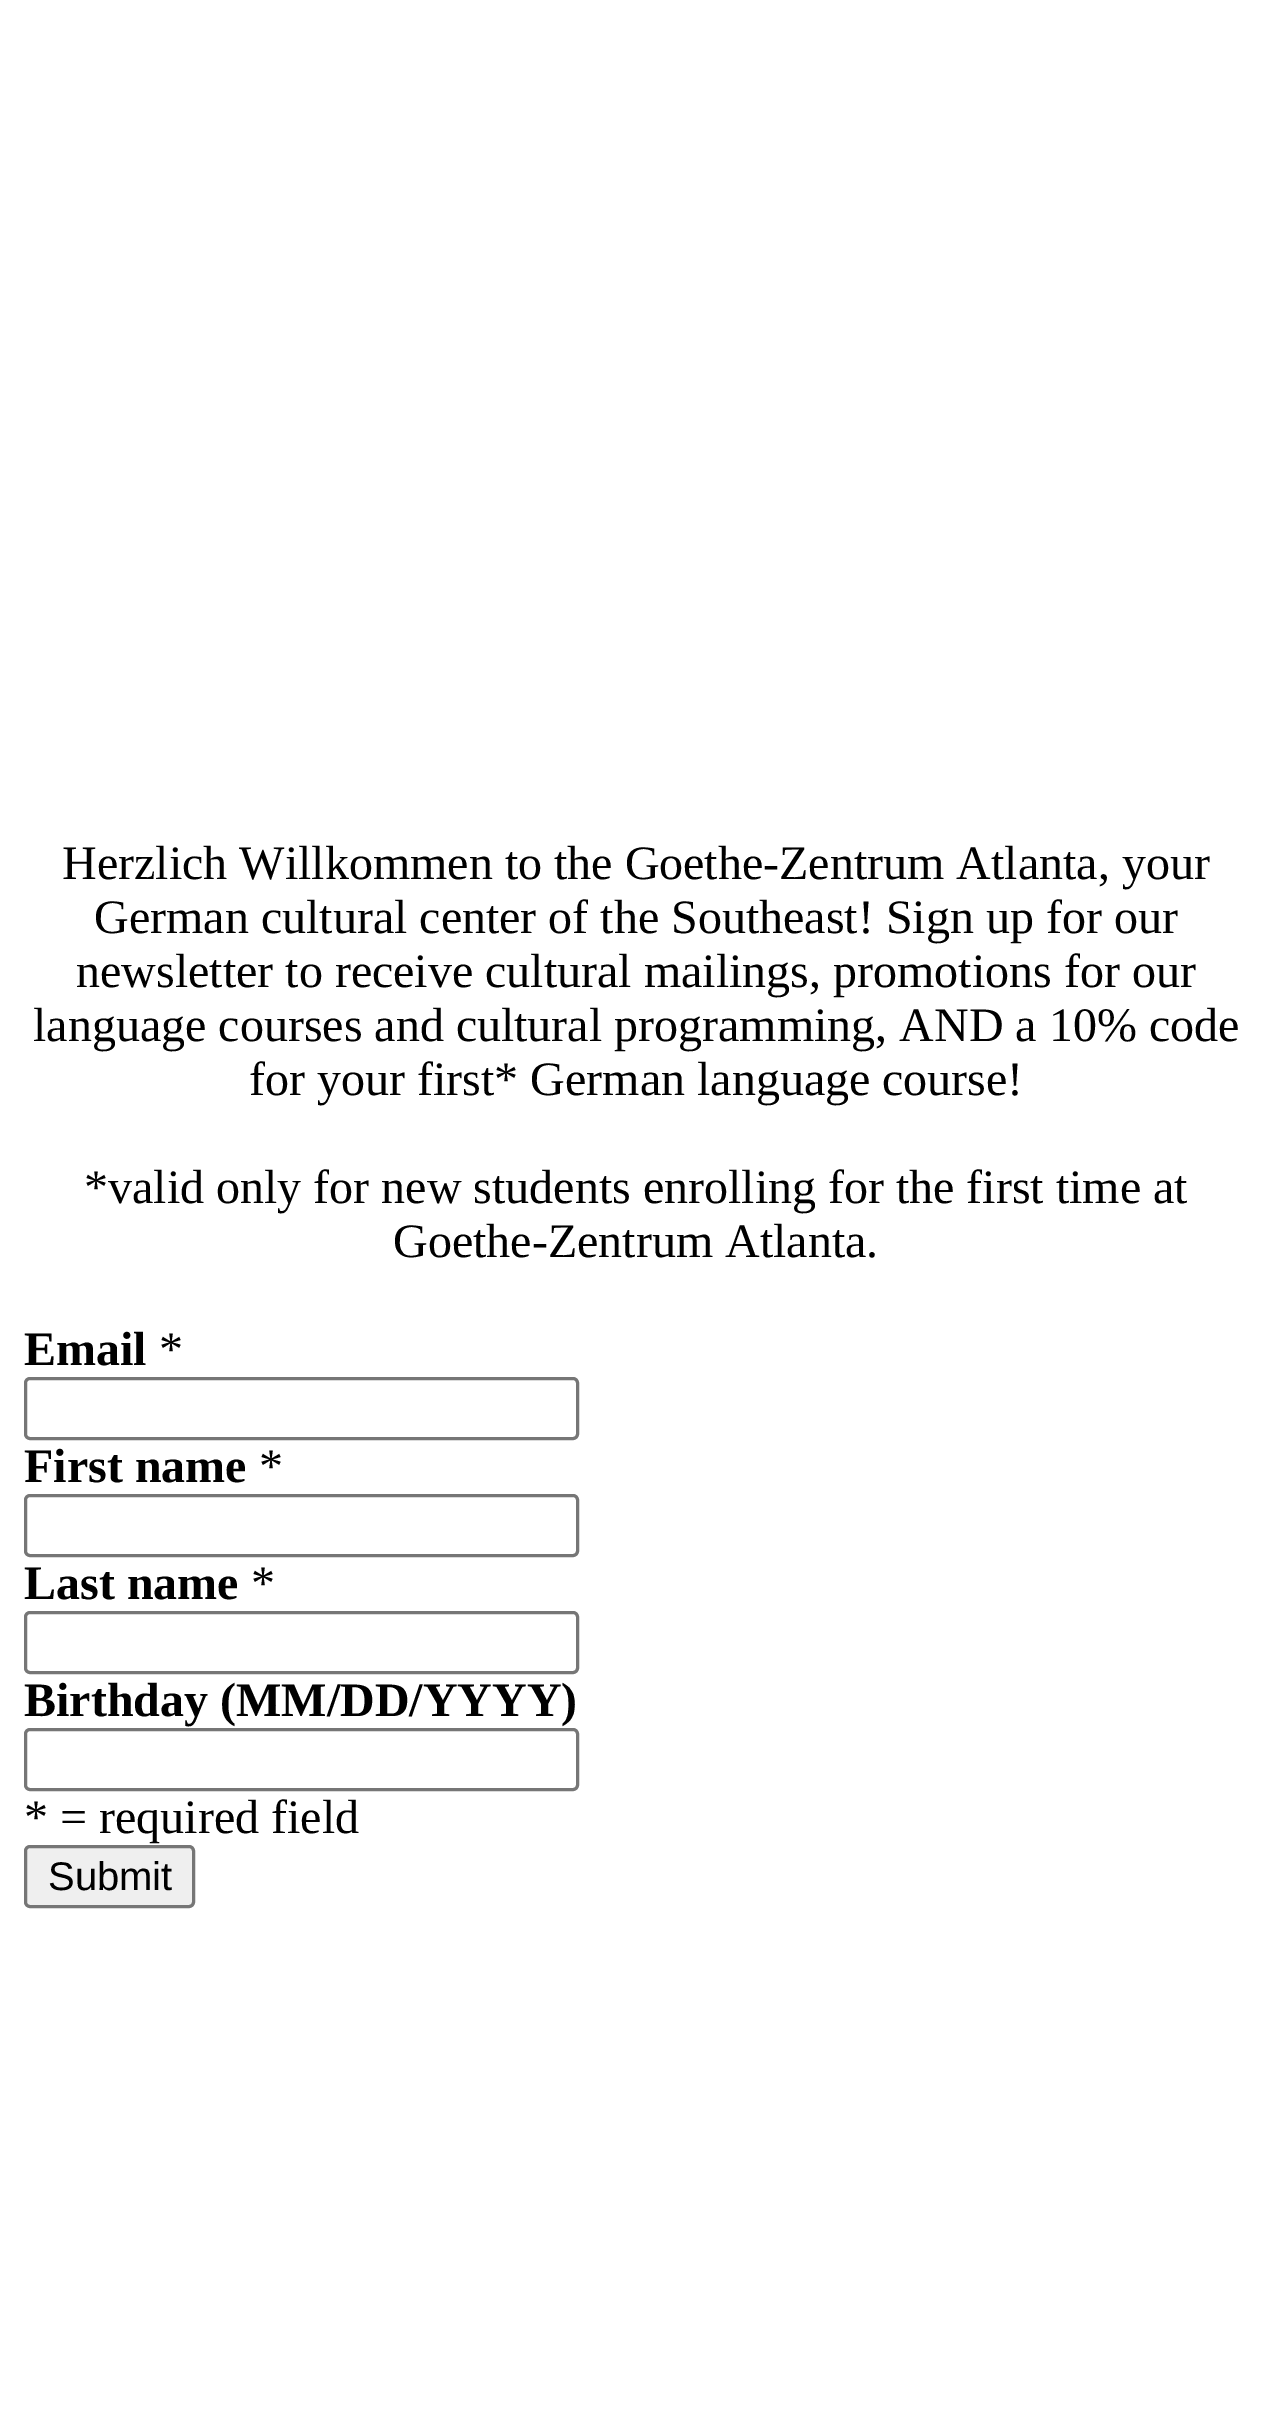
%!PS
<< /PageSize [1270 2429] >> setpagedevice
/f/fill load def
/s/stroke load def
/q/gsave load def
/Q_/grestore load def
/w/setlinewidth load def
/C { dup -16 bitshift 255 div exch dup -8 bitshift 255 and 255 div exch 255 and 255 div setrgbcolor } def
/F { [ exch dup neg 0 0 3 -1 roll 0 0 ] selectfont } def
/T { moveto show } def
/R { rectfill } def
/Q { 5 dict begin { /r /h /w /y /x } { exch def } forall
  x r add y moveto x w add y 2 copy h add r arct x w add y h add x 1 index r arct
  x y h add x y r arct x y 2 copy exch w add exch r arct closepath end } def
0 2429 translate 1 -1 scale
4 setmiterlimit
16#FFFFFF C
0 0 1270 2429 R
/LiberationSerif-Regular 48 F
16#000000 C
(Herzlich Willkommen to the Goethe-Zentrum Atlanta, your) 62 879 T
(German cultural center of the Southeast! Sign up for our) 94 933 T
(newsletter to receive cultural mailings, promotions for our) 76 987 T
(language courses and cultural programming, AND a 10% code) 33 1041 T
(for your first* German language course!) 249 1095 T
(*valid only for new students enrolling for the first time at) 84 1203 T
(Goethe-Zentrum Atlanta.) 393 1257 T
/LiberationSerif-Bold 48 F
(Email) 24 1365 T
/LiberationSerif-Regular 48 F
(*) 159 1365 T
16#767676 C
3 w
25.5 1378.5 552 60 4.5 Q s
/LiberationSerif-Bold 48 F
16#000000 C
(First name) 24 1482 T
/LiberationSerif-Regular 48 F
(*) 259 1482 T
16#767676 C
25.5 1495.5 552 60 4.5 Q s
/LiberationSerif-Bold 48 F
16#000000 C
(Last name) 24 1599 T
/LiberationSerif-Regular 48 F
(*) 251 1599 T
16#767676 C
25.5 1612.5 552 60 4.5 Q s
/LiberationSerif-Bold 48 F
16#000000 C
(Birthday \(MM/DD/YYYY\)) 24 1716 T
16#767676 C
25.5 1729.5 552 60 4.5 Q s
/LiberationSerif-Regular 48 F
16#000000 C
(* = required field) 24 1833 T
16#EFEFEF C
25.5 1846.5 168 60 4.5 Q q f Q_
16#767676 C
s
/LiberationSans-Regular 40 F
16#000000 C
(Submit) 48 1890 T
showpage
